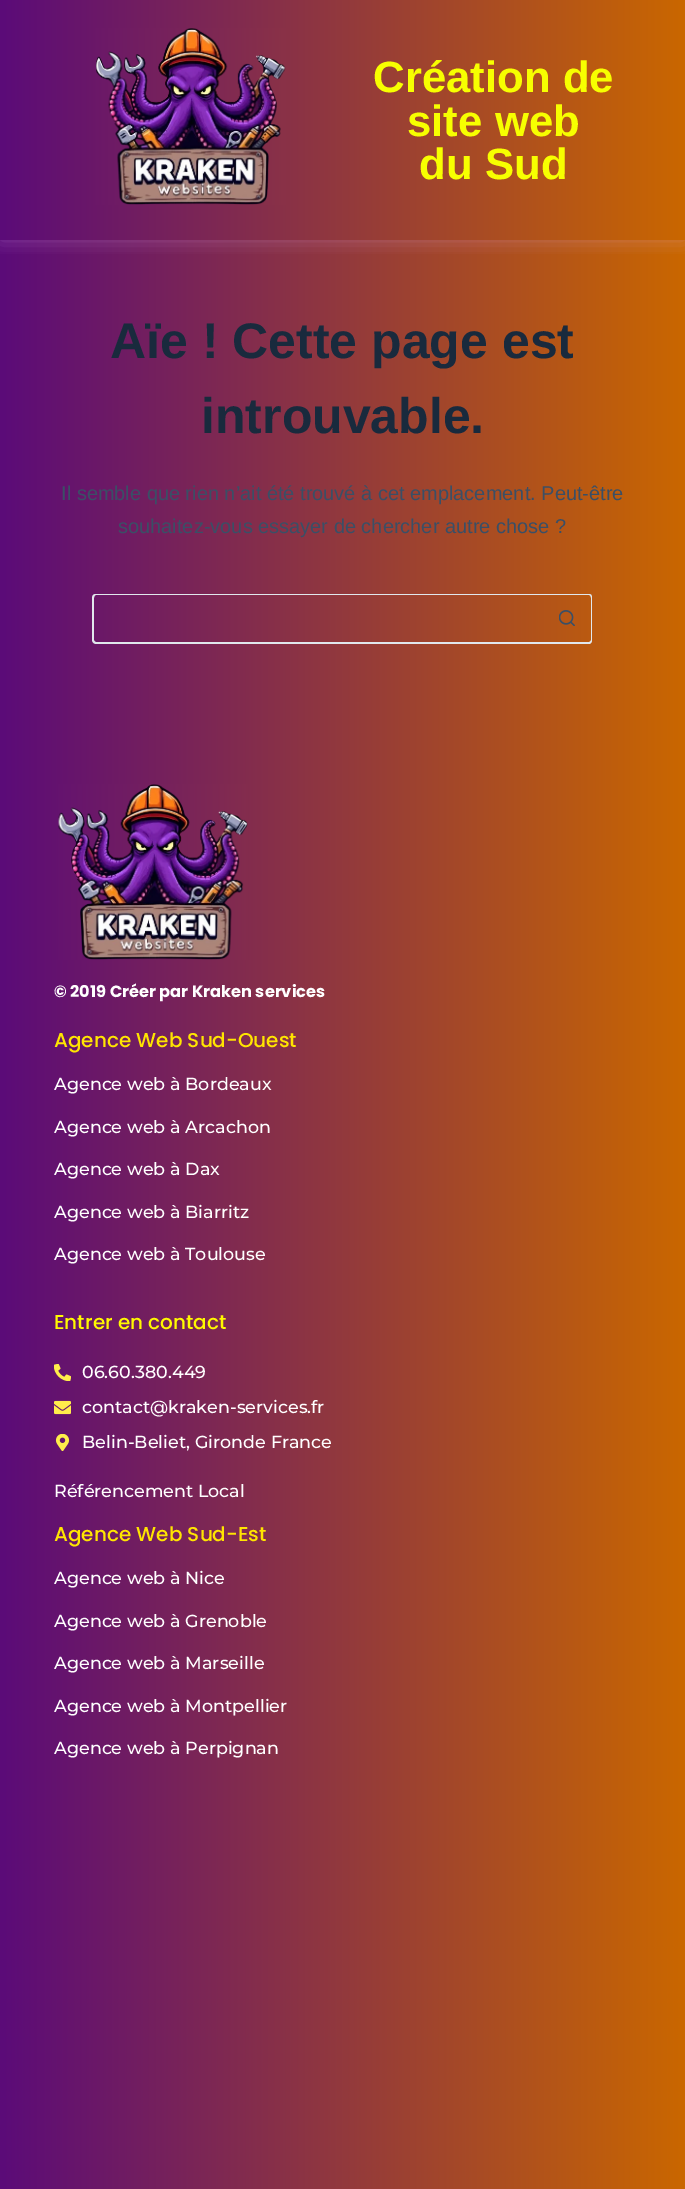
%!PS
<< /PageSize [685 2189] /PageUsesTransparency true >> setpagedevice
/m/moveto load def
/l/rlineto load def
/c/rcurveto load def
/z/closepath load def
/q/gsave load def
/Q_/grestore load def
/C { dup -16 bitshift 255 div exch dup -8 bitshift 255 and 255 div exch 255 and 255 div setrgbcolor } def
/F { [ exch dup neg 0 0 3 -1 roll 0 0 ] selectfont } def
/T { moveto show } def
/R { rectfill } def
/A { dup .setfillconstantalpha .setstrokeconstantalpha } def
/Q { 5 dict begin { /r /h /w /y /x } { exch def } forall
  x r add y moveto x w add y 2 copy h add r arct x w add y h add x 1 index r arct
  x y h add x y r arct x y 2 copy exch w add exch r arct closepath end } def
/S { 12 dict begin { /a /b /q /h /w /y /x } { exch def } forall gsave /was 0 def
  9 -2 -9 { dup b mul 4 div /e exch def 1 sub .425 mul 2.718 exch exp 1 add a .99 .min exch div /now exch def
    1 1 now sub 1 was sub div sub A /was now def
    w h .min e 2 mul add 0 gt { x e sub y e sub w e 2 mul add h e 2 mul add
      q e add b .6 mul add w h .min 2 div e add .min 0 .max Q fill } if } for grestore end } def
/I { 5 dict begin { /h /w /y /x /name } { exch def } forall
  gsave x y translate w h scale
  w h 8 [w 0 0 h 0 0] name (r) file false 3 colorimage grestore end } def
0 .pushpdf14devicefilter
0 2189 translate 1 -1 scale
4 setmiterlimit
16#FFFFFF C
0 0 685 2189 R
q 0 0 m 685 0 l 0 2189 l -685 0 l z clip newpath
<< /ShadingType 2 /ColorSpace /DeviceRGB /Coords [0 916 685 916] /Extend [true true] /Function << /FunctionType 2 /Domain [0 1] /C0 [.357 .043 .475] /C1 [.792 .404 0] /N 1 >> >> shfill Q_
q
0 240 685 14 rectclip
16#EBB4FF C
0 0 685 240 0 9.5 .28 S
Q_
(1.rgb) 95 28 191 177 I
/LiberationSans-Bold 43.75 F
16#F7FF00 C
(Création de) 373 92 T
(site web) 407 136 T
(du Sud) 419 179 T
/LiberationSans-Bold 50 F
16#192A3D C
(Aïe ! Cette page est) 110 358 T
(introuvable.) 201 433 T
/LiberationSans-Regular 20 F
16#3A4F66 C
(Il semble que rien n’ait été trouvé à cet emplacement. Peut-être) 61 500 T
(souhaitez-vous essayer de chercher autre chose ?) 118 533 T
16#E1E8ED C
96 594 m 446 0 l 0 50 l -446 0 l -2 0 -4 -2 -4 -4 c 0 -42 l 0 -3 2 -4 4 -4 c z 96 595 m 446 0 l 0 47 l -446 0 l -1 0 -2 -1 -2 -2 c 0 -42 l 0 -2 1 -3 2 -3 c z eofill
542 594 m 47 0 l 2 0 3 1 3 4 c 0 42 l 0 2 -1 4 -3 4 c -47 0 l z 542 595 m 47 0 l 1 0 2 1 2 3 c 0 42 l 0 1 -1 2 -2 2 c -47 0 l z eofill
(2.rgb) 559 610 16 16 I
(3.rgb) 58 784 190 176 I
/Poppins-Bold 16.25 F
16#FFFFFF C
(© 2019 Créer par Kraken services) 54 997 T
/Poppins-Medium 20 F
16#FFE500 C
(Agence Web Sud-Ouest) 54 1047 T
/Montserrat-Medium 17.5 F
16#FFFFFF C
(Agence web à Bordeaux) 54 1090 T
(Agence web à Arcachon) 54 1133 T
(Agence web à Dax) 54 1175 T
(Agence web à Biarritz) 54 1218 T
(Agence web à Toulouse) 54 1260 T
/Poppins-Medium 20 F
16#FFF900 C
(Entrer en contact) 54 1329 T
(4.rgb) 54 1364 17 17 I
/Montserrat-Medium 17.5 F
16#FFFFFF C
(06.60.380.449) 82 1378 T
(5.rgb) 54 1400 17 15 I
(contact@kraken-services.fr) 82 1413 T
(6.rgb) 55 1434 15 17 I
(Belin-Beliet, Gironde France) 82 1448 T
(Référencement Local) 54 1497 T
/Poppins-Medium 20 F
16#FFE500 C
(Agence Web Sud-Est) 54 1541 T
/Montserrat-Medium 17.5 F
16#FFFFFF C
(Agence web à Nice) 54 1584 T
(Agence web à Grenoble) 54 1627 T
(Agence web à Marseille) 54 1669 T
(Agence web à Montpellier) 54 1712 T
(Agence web à Perpignan) 54 1754 T
.poppdf14devicefilter showpage
